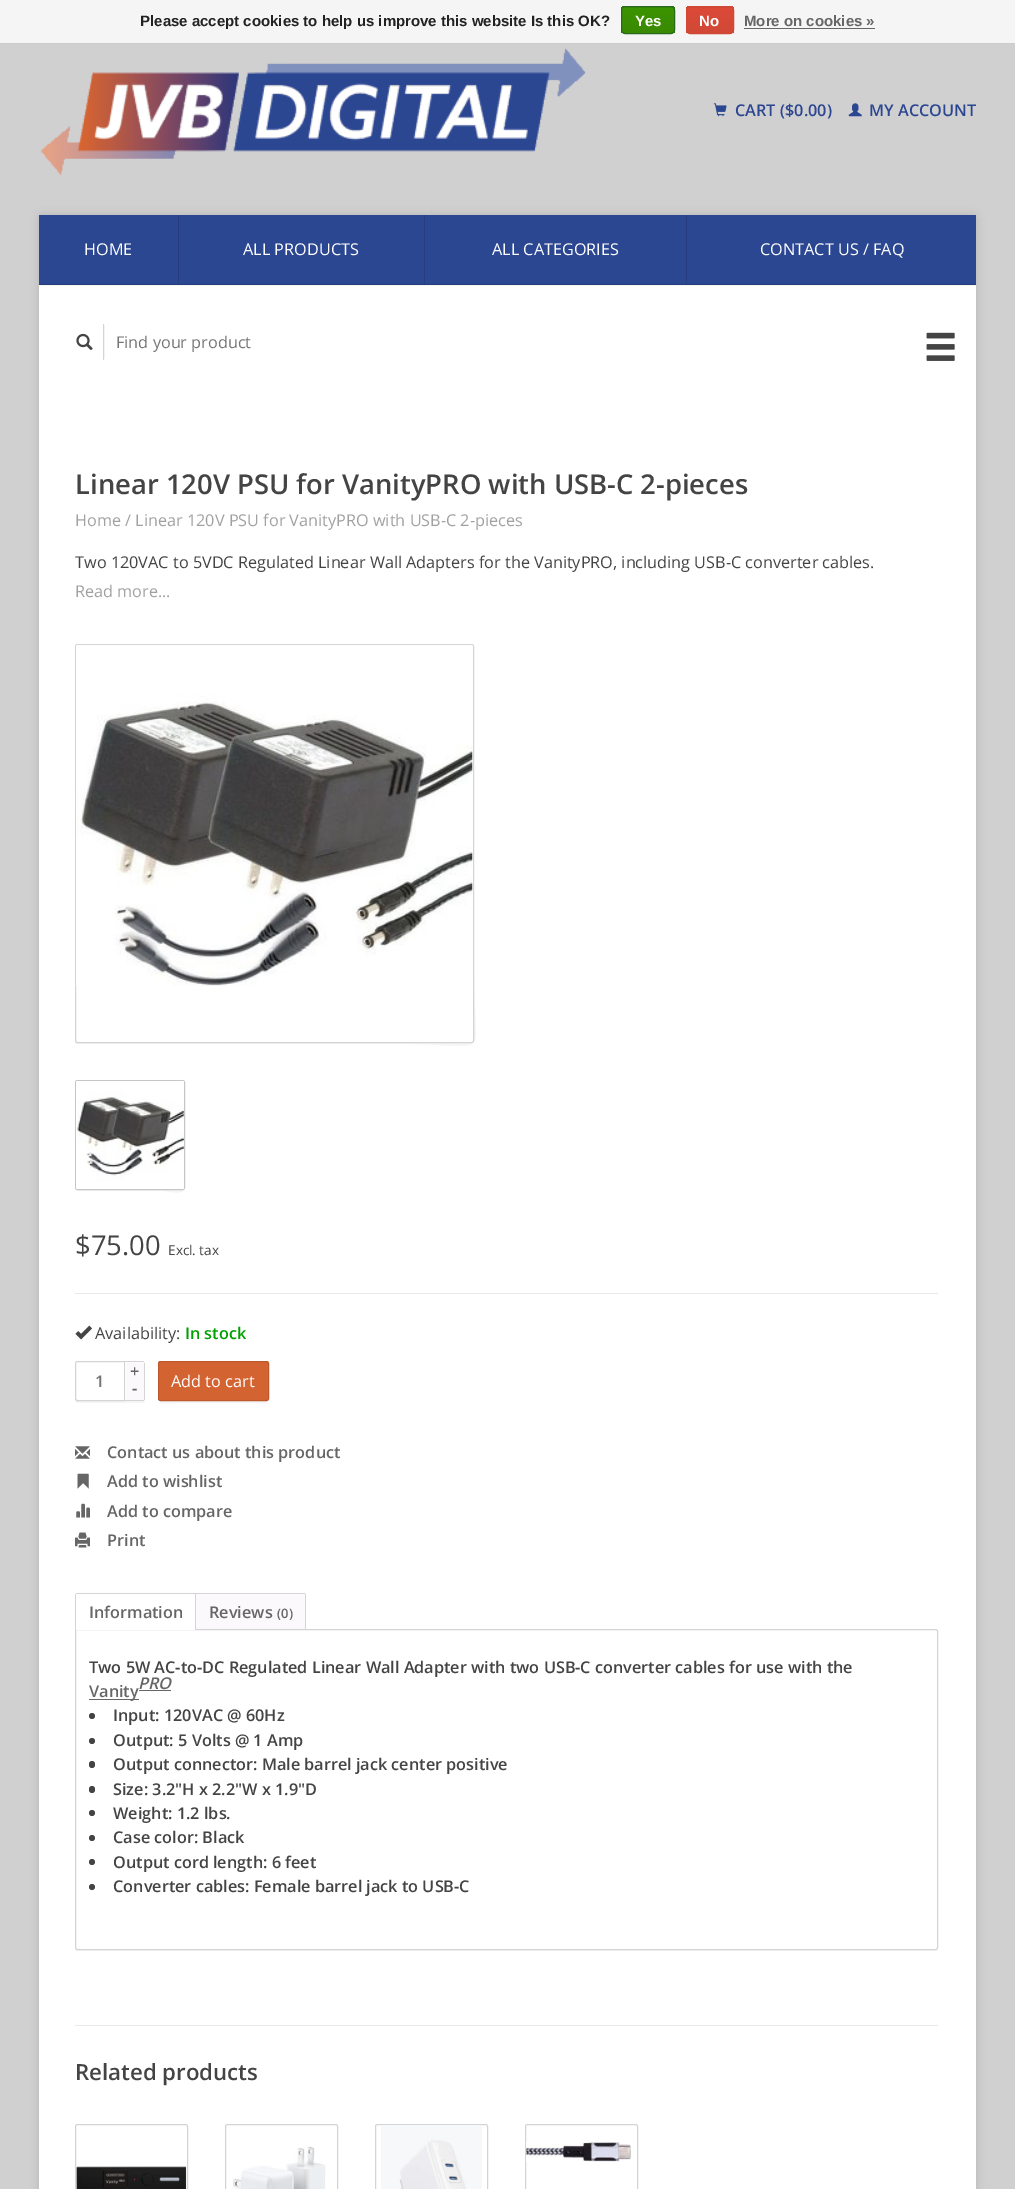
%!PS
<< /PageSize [1015 2189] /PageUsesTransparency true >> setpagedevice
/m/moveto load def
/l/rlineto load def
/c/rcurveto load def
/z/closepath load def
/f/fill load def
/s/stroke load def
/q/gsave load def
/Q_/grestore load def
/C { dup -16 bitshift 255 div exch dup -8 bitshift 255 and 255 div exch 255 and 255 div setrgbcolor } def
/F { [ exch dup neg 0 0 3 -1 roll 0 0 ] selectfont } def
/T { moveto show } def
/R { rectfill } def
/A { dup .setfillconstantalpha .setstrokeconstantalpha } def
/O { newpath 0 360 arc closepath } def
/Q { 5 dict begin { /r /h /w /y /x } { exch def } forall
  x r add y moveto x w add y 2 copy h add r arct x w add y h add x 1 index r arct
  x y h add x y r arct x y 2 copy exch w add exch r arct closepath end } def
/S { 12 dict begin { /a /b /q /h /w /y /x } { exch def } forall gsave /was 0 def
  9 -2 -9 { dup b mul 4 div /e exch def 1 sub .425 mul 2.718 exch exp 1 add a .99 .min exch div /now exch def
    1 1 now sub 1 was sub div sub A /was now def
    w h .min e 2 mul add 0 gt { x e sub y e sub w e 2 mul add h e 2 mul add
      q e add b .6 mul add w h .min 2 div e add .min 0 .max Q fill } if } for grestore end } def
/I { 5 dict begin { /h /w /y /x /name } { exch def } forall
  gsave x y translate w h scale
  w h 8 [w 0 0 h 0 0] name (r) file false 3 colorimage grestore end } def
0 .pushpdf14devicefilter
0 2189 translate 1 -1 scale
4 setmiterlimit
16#D0D0D0 C
0 0 1015 2189 R
16#F5F5F5 C
0 0 1015 43 R
16#CCCCCC C
0 43 1015 1 R
/LiberationSans-Bold 15 F
16#222222 C
(Please accept cookies to help us improve this website Is this OK?) 140 26 T
q
621 6 54 28 4 Q clip newpath
q 621 6 m 54 0 l 0 2 l -54 0 l z clip newpath
<< /ShadingType 2 /ColorSpace /DeviceRGB /Coords [648 -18 648 7.5] /Extend [true true] /Function << /FunctionType 2 /Domain [0 1] /C0 [.235 .576 0] /C1 [.224 .541 0] /N 1 >> >> shfill Q_
q 621 8 m 54 0 l 0 25 l -54 0 l z clip newpath
<< /ShadingType 2 /ColorSpace /DeviceRGB /Coords [648 7.5 648 33] /Extend [true true] /Function << /FunctionType 2 /Domain [0 1] /C0 [.235 .576 0] /C1 [.224 .541 0] /N 1 >> >> shfill Q_
Q_
16#29691D C
621.5 6.5 53 27 3.5 Q s
16#FFFFFF C
(Yes) 635 26 T
q
686 6 48 28 4 Q clip newpath
q 686 6 m 48 0 l 0 2 l -48 0 l z clip newpath
<< /ShadingType 2 /ColorSpace /DeviceRGB /Coords [710 -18 710 7.5] /Extend [true true] /Function << /FunctionType 2 /Domain [0 1] /C0 [.863 .29 .22] /C1 [.82 .282 .212] /N 1 >> >> shfill Q_
q 686 8 m 48 0 l 0 25 l -48 0 l z clip newpath
<< /ShadingType 2 /ColorSpace /DeviceRGB /Coords [710 7.5 710 33] /Extend [true true] /Function << /FunctionType 2 /Domain [0 1] /C0 [.863 .29 .22] /C1 [.82 .282 .212] /N 1 >> >> shfill Q_
Q_
16#D14836 C
686.5 6.5 47 27 3.5 Q s
16#FFFFFF C
(No) 699 26 T
16#666666 C
(More on cookies ») 744 26 T
744 28 131 1 R
(1.rgb) 41 48 545 128 I
(2.rgb) 713 103 14 14 I
/OpenSans-SemiBold 16.25 F
16#2C4792 C
(CART \($0.00\)) 735 116 T
(3.rgb) 848 103 14 14 I
(MY ACCOUNT) 869 116 T
16#000000 C
39 215 937 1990 2.5 4.5 .13 S
16#FFFFFF C
39 286 937 1903 R
16#F5F5F5 C
39 285 937 1 R
16#263E80 C
39 284 937 1 R
16#2C4792 C
39 215 139 69 R
16#263E80 C
178 215 1 69 R
/OpenSans-Regular 16.25 F
16#FFFFFF C
(HOME) 84 255 T
16#2C4792 C
179 215 245 69 R
16#263E80 C
424 215 1 69 R
16#FFFFFF C
(ALL PRODUCTS) 243 255 T
16#2C4792 C
425 215 551 69 R
16#263E80 C
686 215 1 69 R
16#FFFFFF C
(ALL CATEGORIES) 492 255 T
(CONTACT US / FAQ) 760 255 T
q
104 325 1 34 rectclip
16#000000 C
70 325 35 34 0 .5 .06 S
Q_
16#D4D4D4 C
103 324 1 36 R
(4.rgb) 76 333 17 17 I
16#757575 C
(Find your product) 116 348 T
(5.rgb) 926 332 29 29 I
/OpenSans-SemiBold 27.4 F
16#444444 C
(Linear 120V PSU for VanityPRO with USB-C 2-pieces) 75 494 T
/OpenSans-Regular 16.25 F
16#A1A1A1 C
(Home / Linear 120V PSU for VanityPRO with USB-C 2-pieces) 75 526 T
16#444444 C
(Two 120VAC to 5VDC Regulated Linear Wall Adapters for the VanityPRO, including USB-C converter cables.) 75 568 T
16#A1A1A1 C
(Read more...) 75 597 T
16#F5F5F5 C
75 1040 m 0 2 0 4 2 4 c 329 0 l 88 0 68 20 68 -68 c 0 -330 l 0 394 l 0 1 -1 2 -3 2 c -393 0 l -2 0 -3 -1 -3 -2 c z f
16#D4D4D4 C
75.5 644.5 398 398 2 Q s
(6.rgb) 76 645 397 341 I
16#F5F5F5 C
75 1188 m 0 1 0 3 3 3 c 87 0 l 1 0 20 5 20 -3 c 0 1 -1 2 -3 2 c -104 0 l -2 0 -3 -1 -3 -2 c z f
16#C6C6C6 C
75.5 1080.5 109 109 2 Q s
(7.rgb) 76 1081 108 108 I
16#E9E9E9 C
75 1293 863 1 R
/OpenSans-Regular 27.4 F
16#444444 C
($75.00) 75 1255 T
/OpenSans-Regular 13.5 F
(Excl. tax) 168 1255 T
(8.rgb) 75 1325 17 15 I
/OpenSans-Regular 16.25 F
(Availability:) 95 1339 T
/OpenSans-SemiBold 16.25 F
16#009F00 C
(In stock) 185 1339 T
16#F5F5F5 C
75 1399 m 0 1 l 0 2 1 3 3 3 c 47 0 l 0 -2 l -47 0 l -2 0 -3 -1 -3 -2 c z f
16#D4D4D4 C
77.5 1361.5 m 47 0 l 0 39 l -47 0 l -1 0 -2 -1 -2 -2 c 0 -35 l 0 -1 1 -2 2 -2 c z s
16#757575 C
(1) 95 1387 T
16#F5F5F5 C
125 1401 m 0 2 l 11.5 0 l 5.5 0 8.5 1.5 8.5 -4 c 0 1 -1 2 -2.5 2 c z f
16#FCF9FC C
125 1361 m 17.5 0 l 1.5 0 2.5 1 2.5 2.5 c 0 35 l 0 1.5 -1 2.5 -2.5 2.5 c -17.5 0 l z f
16#D4D4D4 C
125 1361 19 1 R
144 1363 1 37 R
125 1400 19 1 R
16#666666 C
(+) 130 1377 T
(-) 132 1394 T
16#F5F5F5 C
158 1400 m 0 6 16 3 20 3 c 71 0 l 22 0 20 5 20 -14 c 0 -25 l 0 35 l 0 1 -1 2 -3 2 c -106 0 l -1 0 -2 0 -2 -1 c z f
16#D46332 C
158.5 1361.5 110 39 2 Q q f Q_
16#BE592D C
s
/OpenSans-Regular 16.25 F
16#FFFFFF C
(Add to cart) 171 1387 T
(9.rgb) 75 1446 15 13 I
/OpenSans-SemiBold 16.25 F
16#666666 C
(Contact us about this product) 107 1458 T
(10.rgb) 77 1473 12 16 I
(Add to wishlist) 107 1487 T
(11.rgb) 76 1503 14 15 I
(Add to compare) 107 1517 T
(12.rgb) 75 1532 15 16 I
(Print) 107 1546 T
16#F5F5F5 C
75 1950 m 0 1 l 863 0 l 0 -357 l 0 356 l z f
16#D4D4D4 C
75.5 1629.5 m 860 0 l 1 0 2 1 2 2 c 0 316 l 0 1 -1 2 -2 2 c -858 0 l -1 0 -2 -1 -2 -2 c z s
16#FFFFFF C
77.5 1593 m 118.5 0 l 0 37 l -121 0 l 0 -34.5 l 0 -1.5 1 -2.5 2.5 -2.5 c z f
16#D4D4D4 C
76 1593 120 1 R
195 1629 1 1 R
75 1594 1 36 R
16#666666 C
(Information) 89 1618 T
16#FCF9FC C
195 1593 m 108.5 0 l 1.5 0 2.5 1 2.5 2.5 c 0 33.5 l -111 0 l z f
16#D4D4D4 C
195 1593 110 1 R
305 1594 1 35 R
195 1593 1 36 R
16#666666 C
(Reviews) 209 1618 T
/OpenSans-SemiBold 13 F
(\(0\)) 277 1618 T
/OpenSans-SemiBold 16.25 F
16#444444 C
(Two 5W AC-to-DC Regulated Linear Wall Adapter with two USB-C converter cables for use with the) 89 1673 T
16#666666 C
89 1699 50 1 R
(Vanity) 89 1697 T
139 1690 32 1 R
/OpenSans-SemiBoldItalic 16.25 F
(PRO) 138 1689 T
16#444444 C
92 1716 3 O f
/OpenSans-SemiBold 16.25 F
(Input: 120VAC @ 60Hz) 113 1721 T
92 1741 3 O f
(Output: 5 Volts @ 1 Amp) 113 1746 T
89 1761 6 7 3 Q f
(Output connector: Male barrel jack center positive) 113 1770 T
89 1786 6 7 3 Q f
(Size: 3.2"H x 2.2"W x 1.9"D) 113 1795 T
92 1813 3 O f
(Weight: 1.2 lbs.) 113 1819 T
92 1838 3 O f
(Case color: Black) 113 1843 T
92 1862 3 O f
(Output cord length: 6 feet) 113 1868 T
92 1887 3 O f
(Converter cables: Female barrel jack to USB-C) 113 1892 T
16#E9E9E9 C
75 2025 863 1 R
/OpenSans-SemiBold 22.25 F
16#444444 C
(Related products) 75 2080 T
16#D4D4D4 C
75.5 2124.5 112 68 2 Q s
(13.rgb) 76 2166 111 23 I
225.5 2124.5 112 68 2 Q s
(14.rgb) 233 2146 93 43 I
375.5 2124.5 112 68 2 Q s
(15.rgb) 381 2125 101 64 I
525.5 2124.5 112 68 2 Q s
(16.rgb) 526 2142 105 20 I
.poppdf14devicefilter showpage
